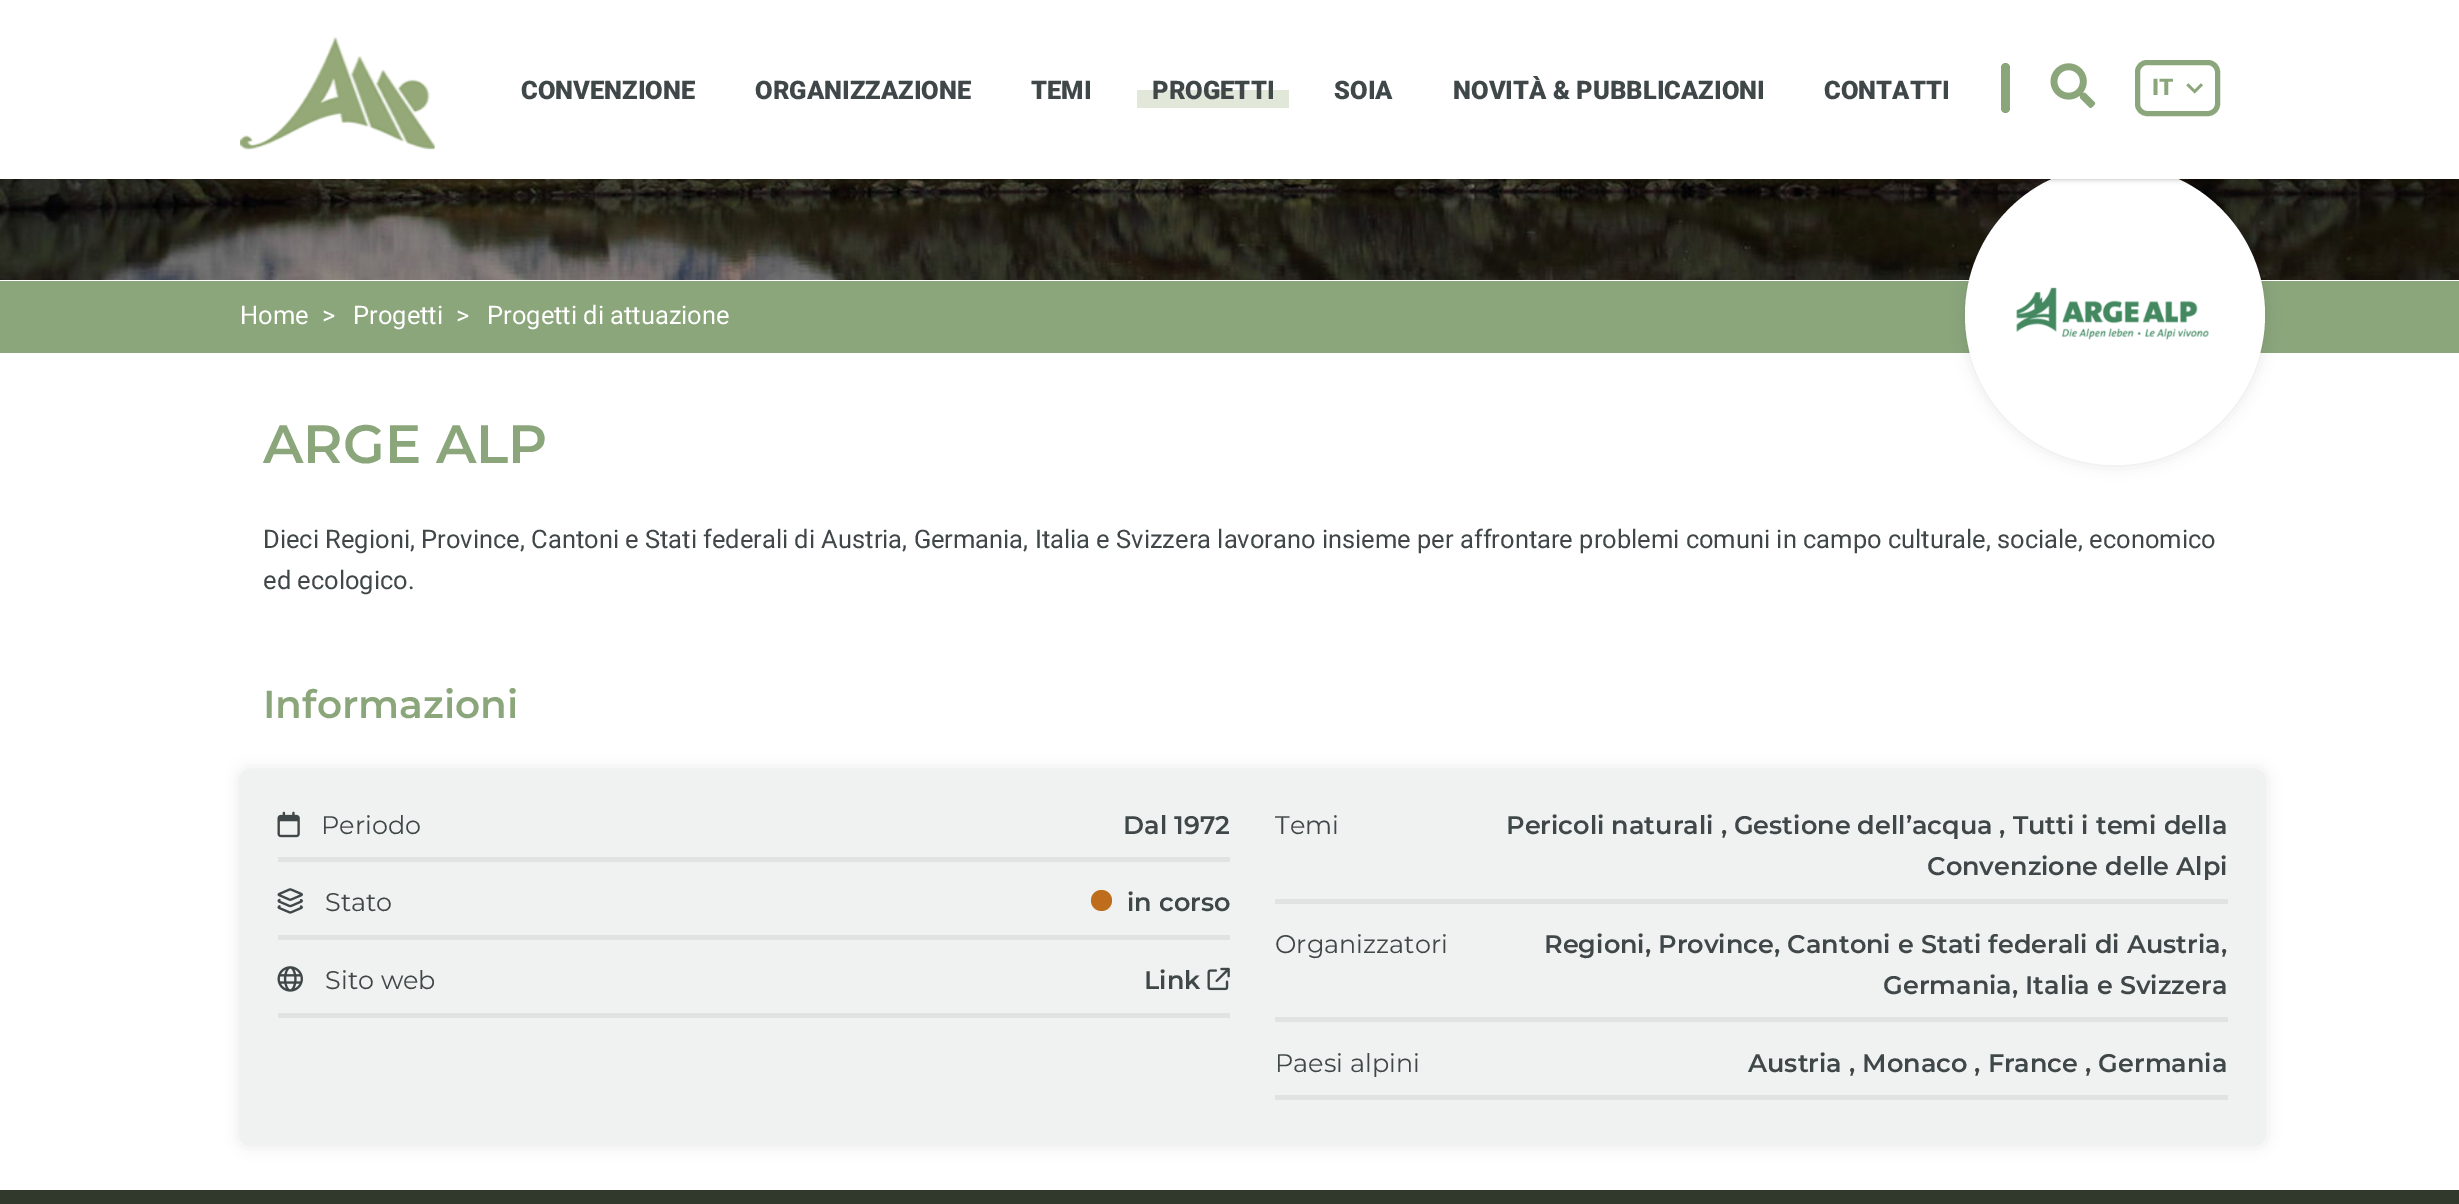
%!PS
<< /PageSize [2459 1204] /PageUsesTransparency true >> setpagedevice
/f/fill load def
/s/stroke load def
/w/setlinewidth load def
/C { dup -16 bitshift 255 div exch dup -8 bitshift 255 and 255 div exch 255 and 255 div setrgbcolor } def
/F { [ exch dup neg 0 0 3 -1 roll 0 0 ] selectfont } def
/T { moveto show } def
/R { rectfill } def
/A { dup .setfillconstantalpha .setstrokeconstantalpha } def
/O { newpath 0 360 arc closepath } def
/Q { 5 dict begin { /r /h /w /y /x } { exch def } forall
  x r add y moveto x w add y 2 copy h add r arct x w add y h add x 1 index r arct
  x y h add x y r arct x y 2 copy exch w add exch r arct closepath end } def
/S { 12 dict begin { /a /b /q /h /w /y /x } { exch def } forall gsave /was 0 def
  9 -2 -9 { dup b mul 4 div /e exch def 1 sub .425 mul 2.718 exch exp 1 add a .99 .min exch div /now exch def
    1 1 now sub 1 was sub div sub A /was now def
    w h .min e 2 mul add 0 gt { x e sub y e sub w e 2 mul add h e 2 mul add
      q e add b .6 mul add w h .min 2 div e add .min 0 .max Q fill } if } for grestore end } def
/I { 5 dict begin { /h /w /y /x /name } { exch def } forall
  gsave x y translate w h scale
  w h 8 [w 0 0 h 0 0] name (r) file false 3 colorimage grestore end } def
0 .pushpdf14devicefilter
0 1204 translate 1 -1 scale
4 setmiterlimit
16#FFFFFF C
0 0 2459 1204 R
(4.rgb) 0 179 2459 101 I
16#8BA67A C
0 281 2459 72 R
16#000000 C
1965 165 300 300 150 7.5 .1 S
16#FFFFFF C
2115 315 150 O f
16#000000 C
0 0 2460 179 0 3 .3 S
16#FFFFFF C
0 0 2459 179 R
(1.rgb) 240 36 195 114 I
/Roboto-Black 25.5 F
16#404748 C
(CONVENZIONE) 521 99 T
(ORGANIZZAZIONE) 755 99 T
(TEMI) 1031 99 T
16#E1E7D9 C
1137 90 152 18 R
16#404748 C
(PROGETTI) 1152 99 T
(SOIA) 1334 99 T
(NOVITÀ & PUBBLICAZIONI) 1453 99 T
(CONTATTI) 1824 99 T
16#8BA67A C
2001 63 9 50 4.5 Q f
(2.rgb) 2050 63 46 45 I
5 w
2137.5 62.5 80 51 9.5 Q s
/Roboto-Black 23 F
(IT) 2152 95 T
(3.rgb) 2186 83 17 11 I
/Roboto-Regular 25.5 F
16#FFFFFF C
(Home) 240 324 T
(>) 322 324 T
(Progetti) 353 324 T
(>) 456 324 T
(Progetti di attuazione) 487 324 T
(5.rgb) 2016 287 193 53 I
/Montserrat-Thin 54 F
16#8BA67A C
(ARGE ALP) 263 463 T
/Roboto-Regular 25.5 F
16#404748 C
(Dieci Regioni, Province, Cantoni e Stati federali di Austria, Germania, Italia e Svizzera lavorano insieme per affrontare problemi comuni in campo culturale, sociale, economico) 263 548 T
(ed ecologico.) 263 589 T
/Montserrat-Thin 39 F
16#8BA67A C
(Informazioni) 263 718 T
16#000000 C
240 770 2025 375 8 7.5 .1 S
16#F0F2F1 C
240 770 2025 375 8 Q f
16#E1E3E2 C
278 857 952 5 R
(6.rgb) 277 811 23 27 I
/Montserrat-Regular 25.5 F
16#404748 C
(Periodo) 321 834 T
/Montserrat-Thin 25.5 F
(Dal 1972) 1123 834 T
16#E1E3E2 C
278 935 952 5 R
(7.rgb) 277 888 26 26 I
/Montserrat-Regular 25.5 F
16#404748 C
(Stato) 325 911 T
16#BE6D1D C
1101.5 900.5 10.5 O f
/Montserrat-Thin 25.5 F
16#404748 C
(in corso) 1127 911 T
16#E1E3E2 C
278 1013 952 5 R
(8.rgb) 277 966 26 26 I
/Montserrat-Regular 25.5 F
16#404748 C
(Sito web) 325 989 T
/Montserrat-Thin 25.5 F
(Link) 1144 989 T
(9.rgb) 1207 967 23 24 I
16#E1E3E2 C
1275 899 953 5 R
/Montserrat-Regular 25.5 F
16#404748 C
(Temi) 1275 834 T
/Montserrat-Thin 25.5 F
(Pericoli naturali , Gestione dell’acqua , Tutti i temi della) 1506 834 T
(Convenzione delle Alpi) 1927 875 T
16#E1E3E2 C
1275 1017 953 5 R
/Montserrat-Regular 25.5 F
16#404748 C
(Organizzatori) 1275 953 T
/Montserrat-Thin 25.5 F
(Regioni, Province, Cantoni e Stati federali di Austria,) 1544 953 T
(Germania, Italia e Svizzera) 1883 994 T
16#E1E3E2 C
1275 1095 953 5 R
/Montserrat-Regular 25.5 F
16#404748 C
(Paesi alpini) 1275 1072 T
/Montserrat-Thin 25.5 F
(Austria , Monaco , France , Germania) 1748 1072 T
16#31392C C
0 1190 2459 14 R
.poppdf14devicefilter showpage
